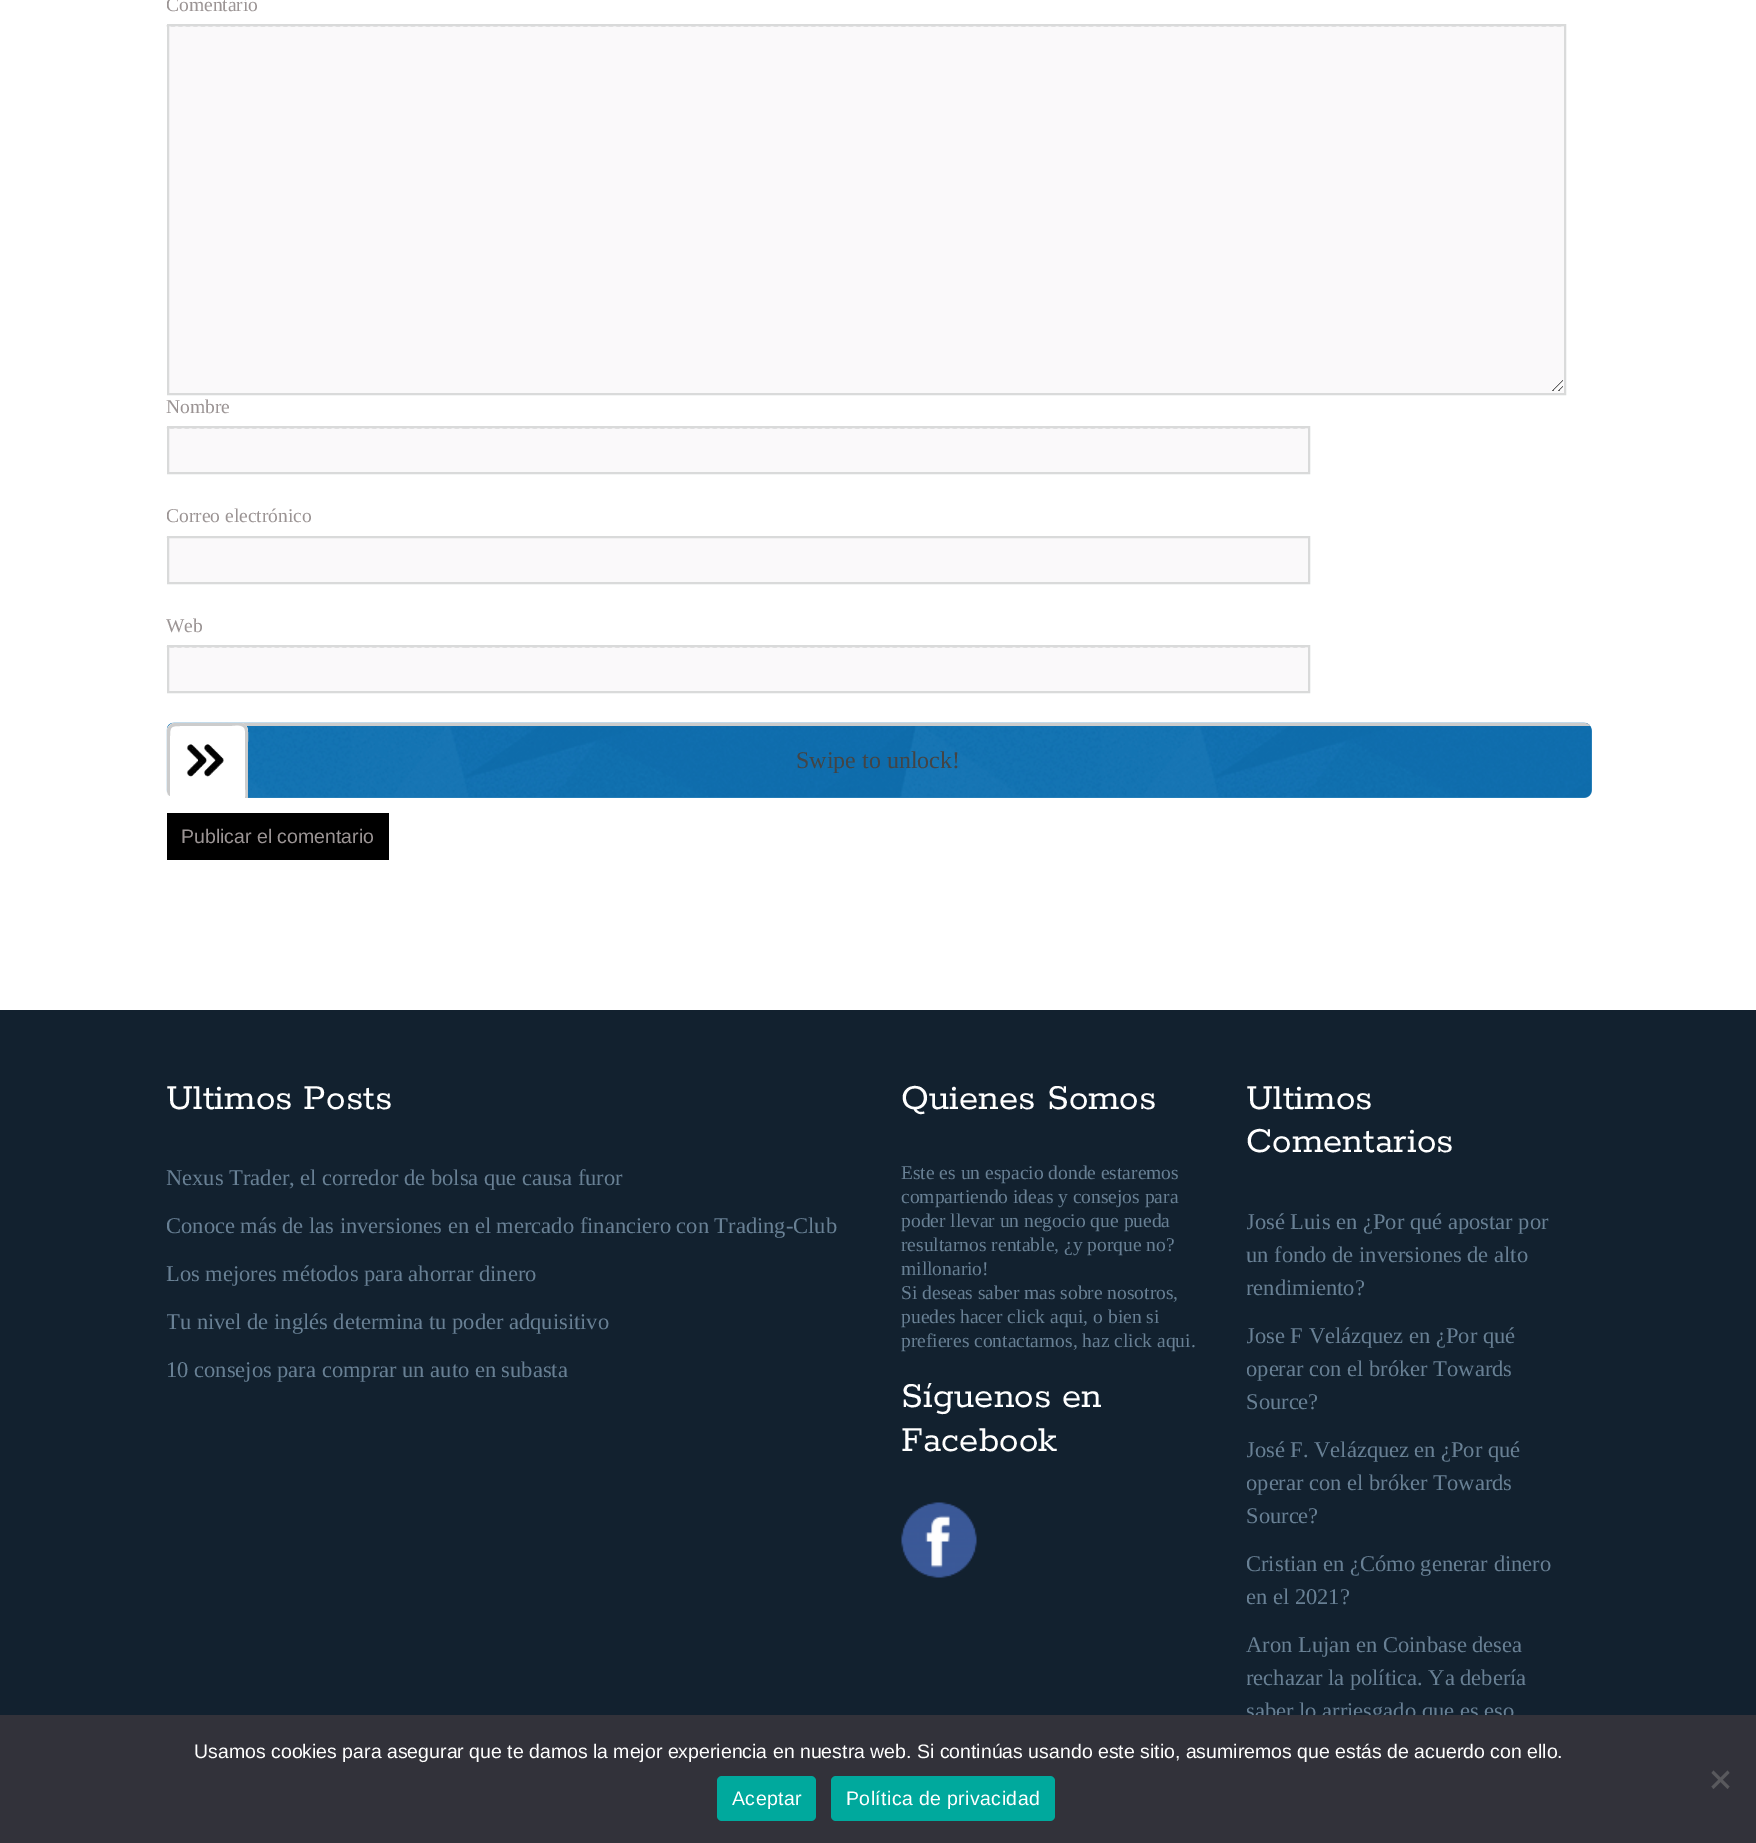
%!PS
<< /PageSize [1756 1843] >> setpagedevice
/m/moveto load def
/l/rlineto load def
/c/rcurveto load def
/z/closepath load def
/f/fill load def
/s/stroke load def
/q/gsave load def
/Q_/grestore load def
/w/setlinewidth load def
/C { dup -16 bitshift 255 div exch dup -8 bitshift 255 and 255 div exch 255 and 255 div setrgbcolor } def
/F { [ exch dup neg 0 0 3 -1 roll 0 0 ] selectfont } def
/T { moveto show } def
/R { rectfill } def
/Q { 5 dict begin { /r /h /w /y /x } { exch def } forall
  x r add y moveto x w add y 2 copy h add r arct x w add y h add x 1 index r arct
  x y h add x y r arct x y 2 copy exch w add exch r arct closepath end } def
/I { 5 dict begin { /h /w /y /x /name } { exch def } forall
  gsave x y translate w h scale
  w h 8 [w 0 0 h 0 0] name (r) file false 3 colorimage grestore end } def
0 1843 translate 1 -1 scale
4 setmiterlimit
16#FFFFFF C
0 0 1756 1843 R
q
167 0 1425 1010 rectclip
/LiberationSerif-Regular 19.5 F
16#9B9494 C
(Comentario) 166 11 T
Q_
16#FAF9FA C
169 26 1395 367 R
(1.rgb) 166 25 1398 366 I
16#D9DADA C
2 w
168 25 1397 369 rectstroke
/LiberationSerif-Regular 19.5 F
16#9B9494 C
(Nombre) 166 413 T
16#FAF9FA C
169 428 1139 44 R
(2.rgb) 166 427 1142 2 I
16#D9DADA C
168 427 1141 46 rectstroke
q
167 0 1425 1010 rectclip
16#9B9494 C
(Correo electrónico) 166 522 T
Q_
16#FAF9FA C
168 537 m 1141 0 l 0 46 l -1141 0 l z q f Q_
16#D9DADA C
s
(3.rgb) 166 536 1 2 I
16#9B9494 C
(Web) 166 632 T
16#FAF9FA C
169 647 1139 44 R
(4.rgb) 166 646 1142 2 I
16#D9DADA C
168 646 1141 46 rectstroke
16#2980B9 C
167 723 1425 75 8 Q f
(5.rgb) 166 722 1426 76 I
/LiberationSerif-Regular 24 F
16#444444 C
(Swipe to unlock!) 796 768 T
16#CCCCCC C
175 723 m -4 0 -8 4 -8 8 c 0 59 l 0 3 1 5 3 6 c 0 -54 l 0 -3 -3 -16 5 -16 c 1415 0 l -1 -2 -3 -3 -6 -3 c z f
q
167 723 1425 75 8 Q clip newpath
16#FFFFFF C
167 723 81 81 8 Q f
Q_
(6.rgb) 186 744 38 33 I
175 723 m -4 0 -8 4 -8 8 c 0 59 l 0 3 1 5 3 6 c 0 -54 l 0 -17 -1 -16 16 -16 c 43 0 l 4 0 16 -3 16 5 c 0 54 l 0 4 1 9 0 13 c 3 0 l 0 -56 l 0 -6 2 -19 -8 -19 c z f
16#000000 C
167 813 222 47 R
/LiberationSans-Regular 19.5 F
16#9B9494 C
(Publicar el comentario) 181 843 T
16#12212F C
0 1010 1756 705 R
/Rokkitt-Regular 39 F
16#FFFFFF C
(Ultimos Posts) 166 1109 T
/LiberationSerif-Regular 22.5 F
16#688094 C
(Nexus Trader, el corredor de bolsa que causa furor) 166 1185 T
q
167 1010 1425 784 rectclip
(Conoce más de las inversiones en el mercado financiero con Trading-Club) 166 1233 T
Q_
(Los mejores métodos para ahorrar dinero) 166 1281 T
q
167 1010 1425 784 rectclip
(Tu nivel de inglés determina tu poder adquisitivo) 166 1329 T
Q_
(10 consejos para comprar un auto en subasta) 166 1377 T
/Rokkitt-Regular 39 F
16#FFFFFF C
(Quienes Somos) 901 1109 T
/LiberationSerif-Regular 19.5 F
16#688094 C
(Este es un espacio donde estaremos) 901 1179 T
(compartiendo ideas y consejos para) 901 1203 T
(poder llevar un negocio que pueda) 901 1227 T
(resultarnos rentable, ¿y porque no?) 901 1251 T
(millonario!) 901 1275 T
(Si deseas saber mas sobre nosotros,) 901 1299 T
(puedes hacer click aqui, o bien si) 901 1323 T
(prefieres contactarnos, haz click aqui.) 901 1347 T
/Rokkitt-Regular 39 F
16#FFFFFF C
(Síguenos en) 901 1407 T
(Facebook) 901 1451 T
(7.rgb) 901 1502 76 76 I
(Ultimos) 1246 1109 T
(Comentarios) 1246 1152 T
q
1247 1055 345 687 rectclip
/LiberationSerif-Regular 22.5 F
16#688094 C
(José Luis) 1246 1229 T
Q_
/LiberationSerif-Regular 22.5 F
16#688094 C
(en ¿Por qué apostar por) 1336 1229 T
(un fondo de inversiones de alto) 1246 1262 T
q
1247 1055 345 687 rectclip
(rendimiento?) 1246 1295 T
(Jose F Velázquez) 1246 1343 T
Q_
(en ¿Por qué) 1409 1343 T
q
1247 1055 345 687 rectclip
(operar con el bróker Towards) 1246 1376 T
Q_
(Source?) 1246 1409 T
q
1247 1055 345 687 rectclip
(José F. Velázquez) 1246 1457 T
Q_
(en ¿Por qué) 1414 1457 T
q
1247 1055 345 687 rectclip
(operar con el bróker Towards) 1246 1490 T
Q_
(Source?) 1246 1523 T
q
1247 1055 345 687 rectclip
(Cristian) 1246 1571 T
Q_
(en ¿Cómo generar dinero) 1323 1571 T
q
1247 1055 345 687 rectclip
(en el 2021?) 1246 1604 T
Q_
(Aron Lujan en Coinbase desea) 1246 1652 T
q
1247 1055 345 687 rectclip
(rechazar la política. Ya debería) 1246 1685 T
(saber lo arriesgado que es eso) 1246 1718 T
Q_
16#32323A C
0 1715 1756 128 R
/LiberationSans-Regular 19.5 F
16#FFFFFF C
(Usamos cookies para asegurar que te damos la mejor experiencia en nuestra web. Si continúas usando este sitio, asumiremos que estás de acuerdo con ello.) 194 1758 T
16#59595D C
1727.5 1770.5 m 2 2.5 l -16 16 l -2 -2.5 l z f
1711.5 1773 m 2 -2.5 l 16 16 l -2 2.5 l z f
16#00A99D C
717 1776 99 45 5 Q f
16#FFFFFF C
732 1805 m .4 0 (Aceptar) ashow
16#00A99D C
831 1776 224 45 5 Q f
16#FFFFFF C
846 1805 m .4 0 (Política de privacidad) ashow
showpage
